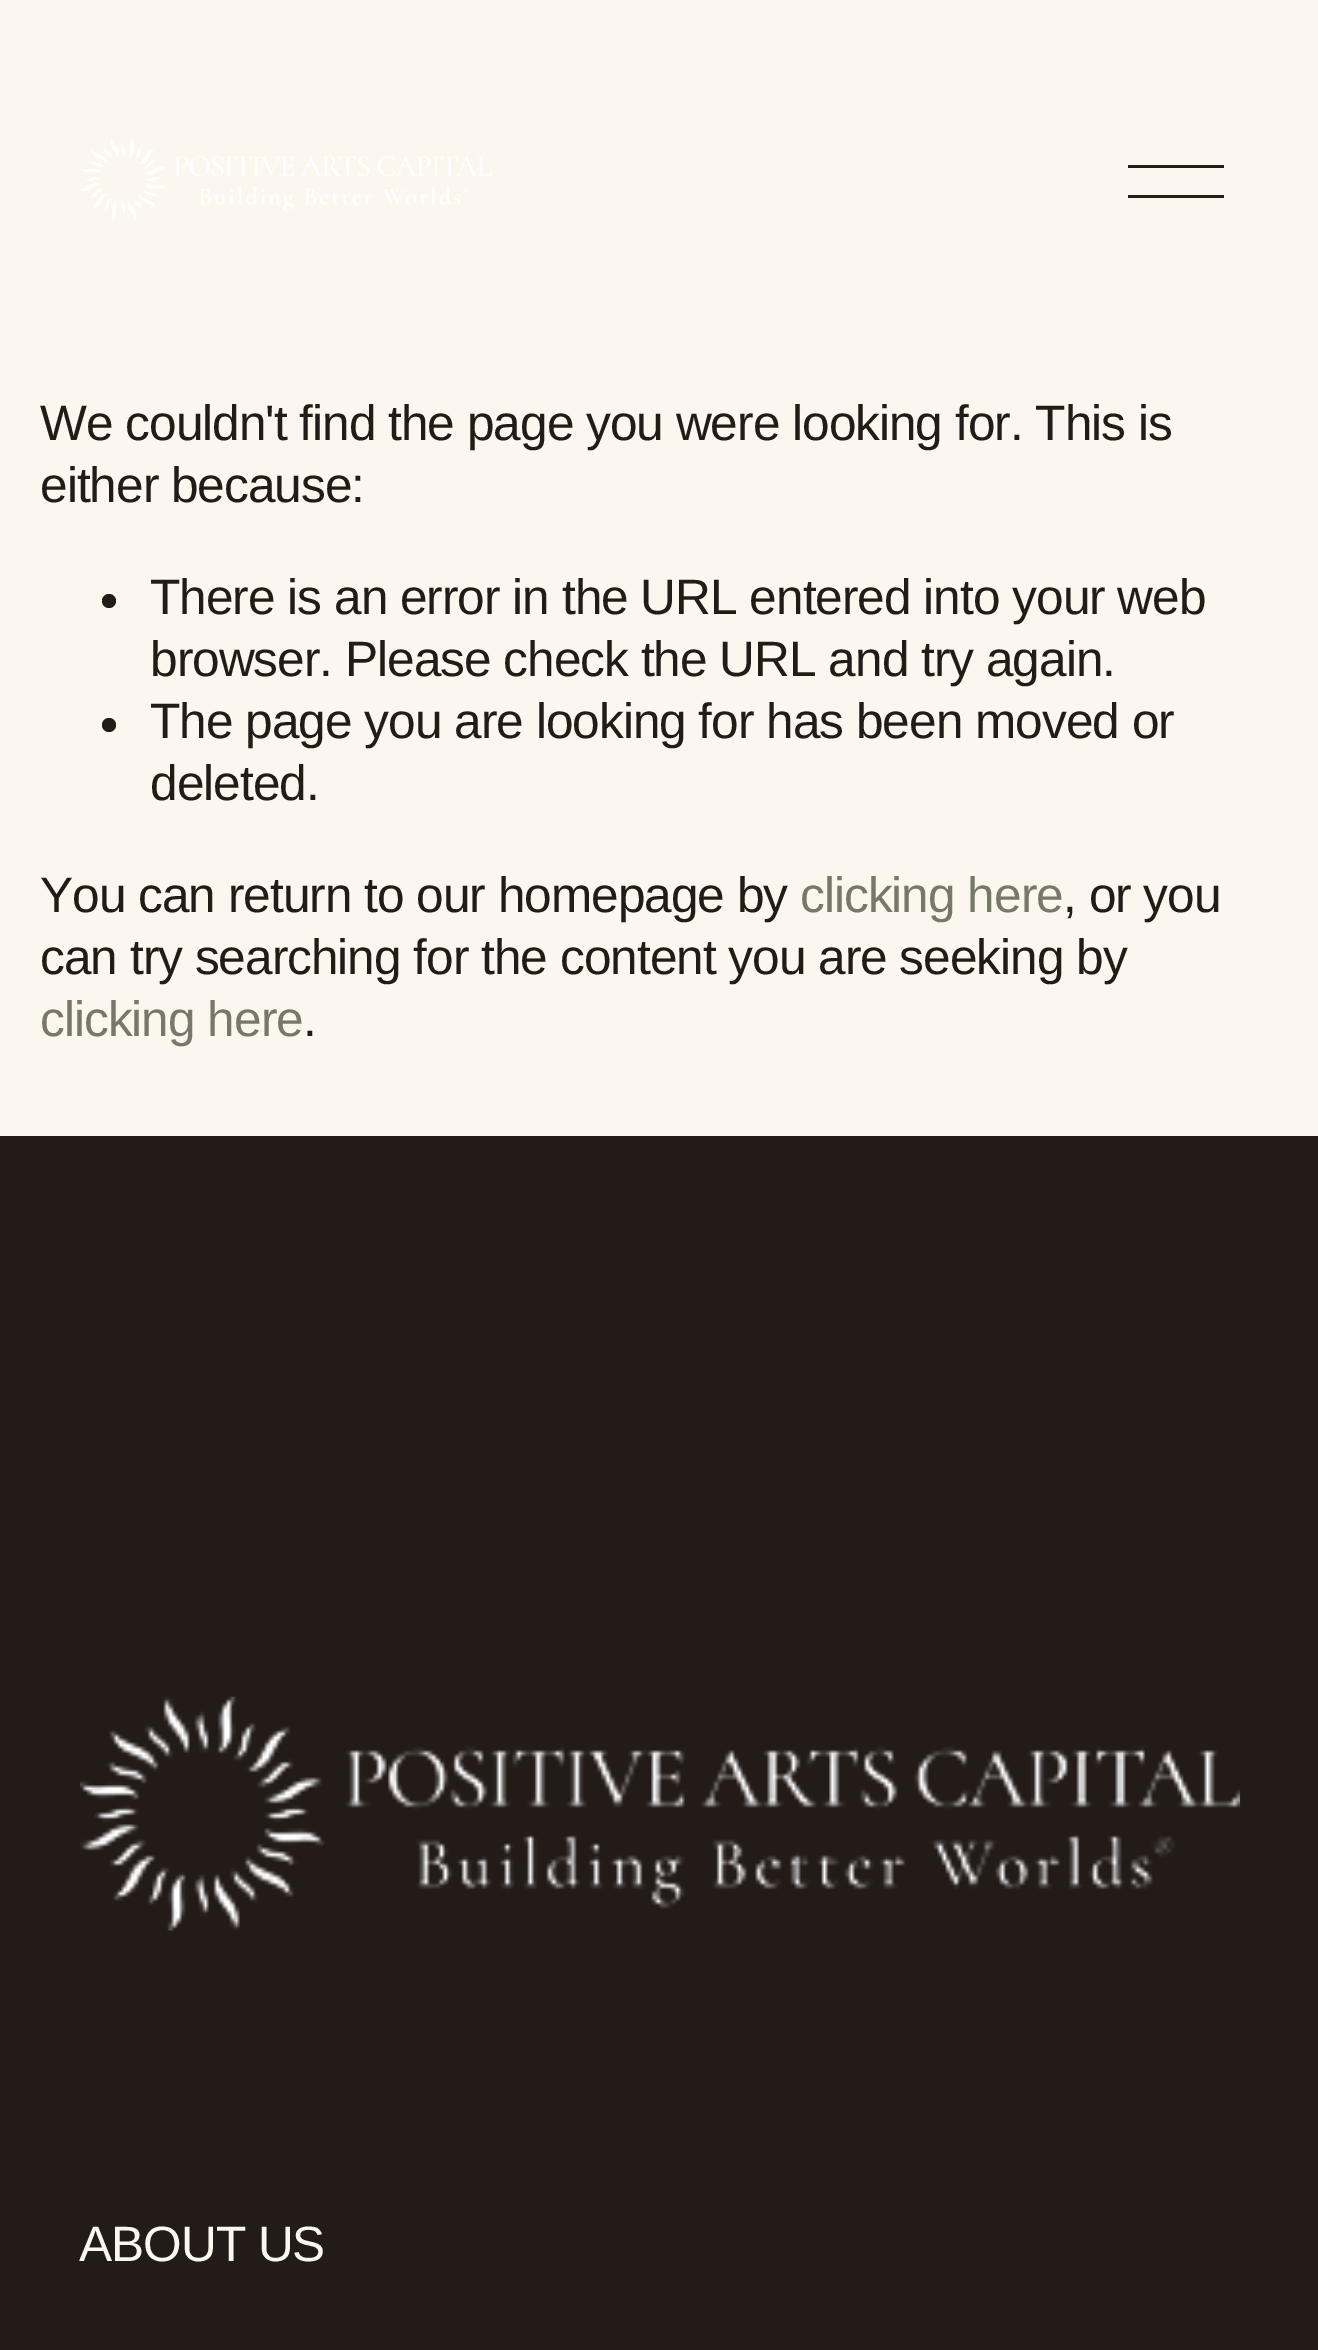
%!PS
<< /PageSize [1318 2350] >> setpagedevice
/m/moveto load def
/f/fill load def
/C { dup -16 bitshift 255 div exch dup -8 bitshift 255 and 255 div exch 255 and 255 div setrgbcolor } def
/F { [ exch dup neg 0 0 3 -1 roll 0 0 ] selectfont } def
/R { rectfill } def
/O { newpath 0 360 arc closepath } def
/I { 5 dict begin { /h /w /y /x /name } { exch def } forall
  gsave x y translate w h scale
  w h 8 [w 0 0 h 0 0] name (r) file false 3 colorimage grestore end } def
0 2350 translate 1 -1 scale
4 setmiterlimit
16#FBF7EF C
0 0 1318 2350 R
(1.rgb) 80 138 412 82 I
16#231B18 C
1128 165 96 3 R
1128 195 96 3 R
/LiberationSans-Regular 49.6 F
40 440 m -1 0 (We couldn't find the page you were looking for. This is) ashow
40 502 m -1 0 (either because:) ashow
109 601 7 O f
150 614 m -1 0 (There is an error in the URL entered into your web) ashow
150 676 m -1 0 (browser. Please check the URL and try again.) ashow
109 725 7 O f
150 738 m -1 0 (The page you are looking for has been moved or) ashow
150 800 m -1 0 (deleted.) ashow
40 912 m -1 0 (You can return to our homepage by) ashow
16#777869 C
800 912 m -1 0 (clicking here) ashow
16#231B18 C
1063 912 m -1 0 (, or you) ashow
40 974 m -1 0 (can try searching for the content you are seeking by) ashow
16#777869 C
40 1036 m -1 0 (clicking here) ashow
16#231B18 C
303 1036 m -1 0 (.) ashow
0 1136 1318 1214 R
(2.rgb) 80 1696 1161 235 I
16#FBF7EF C
79 2261 m -1 0 (ABOUT US) ashow
showpage
